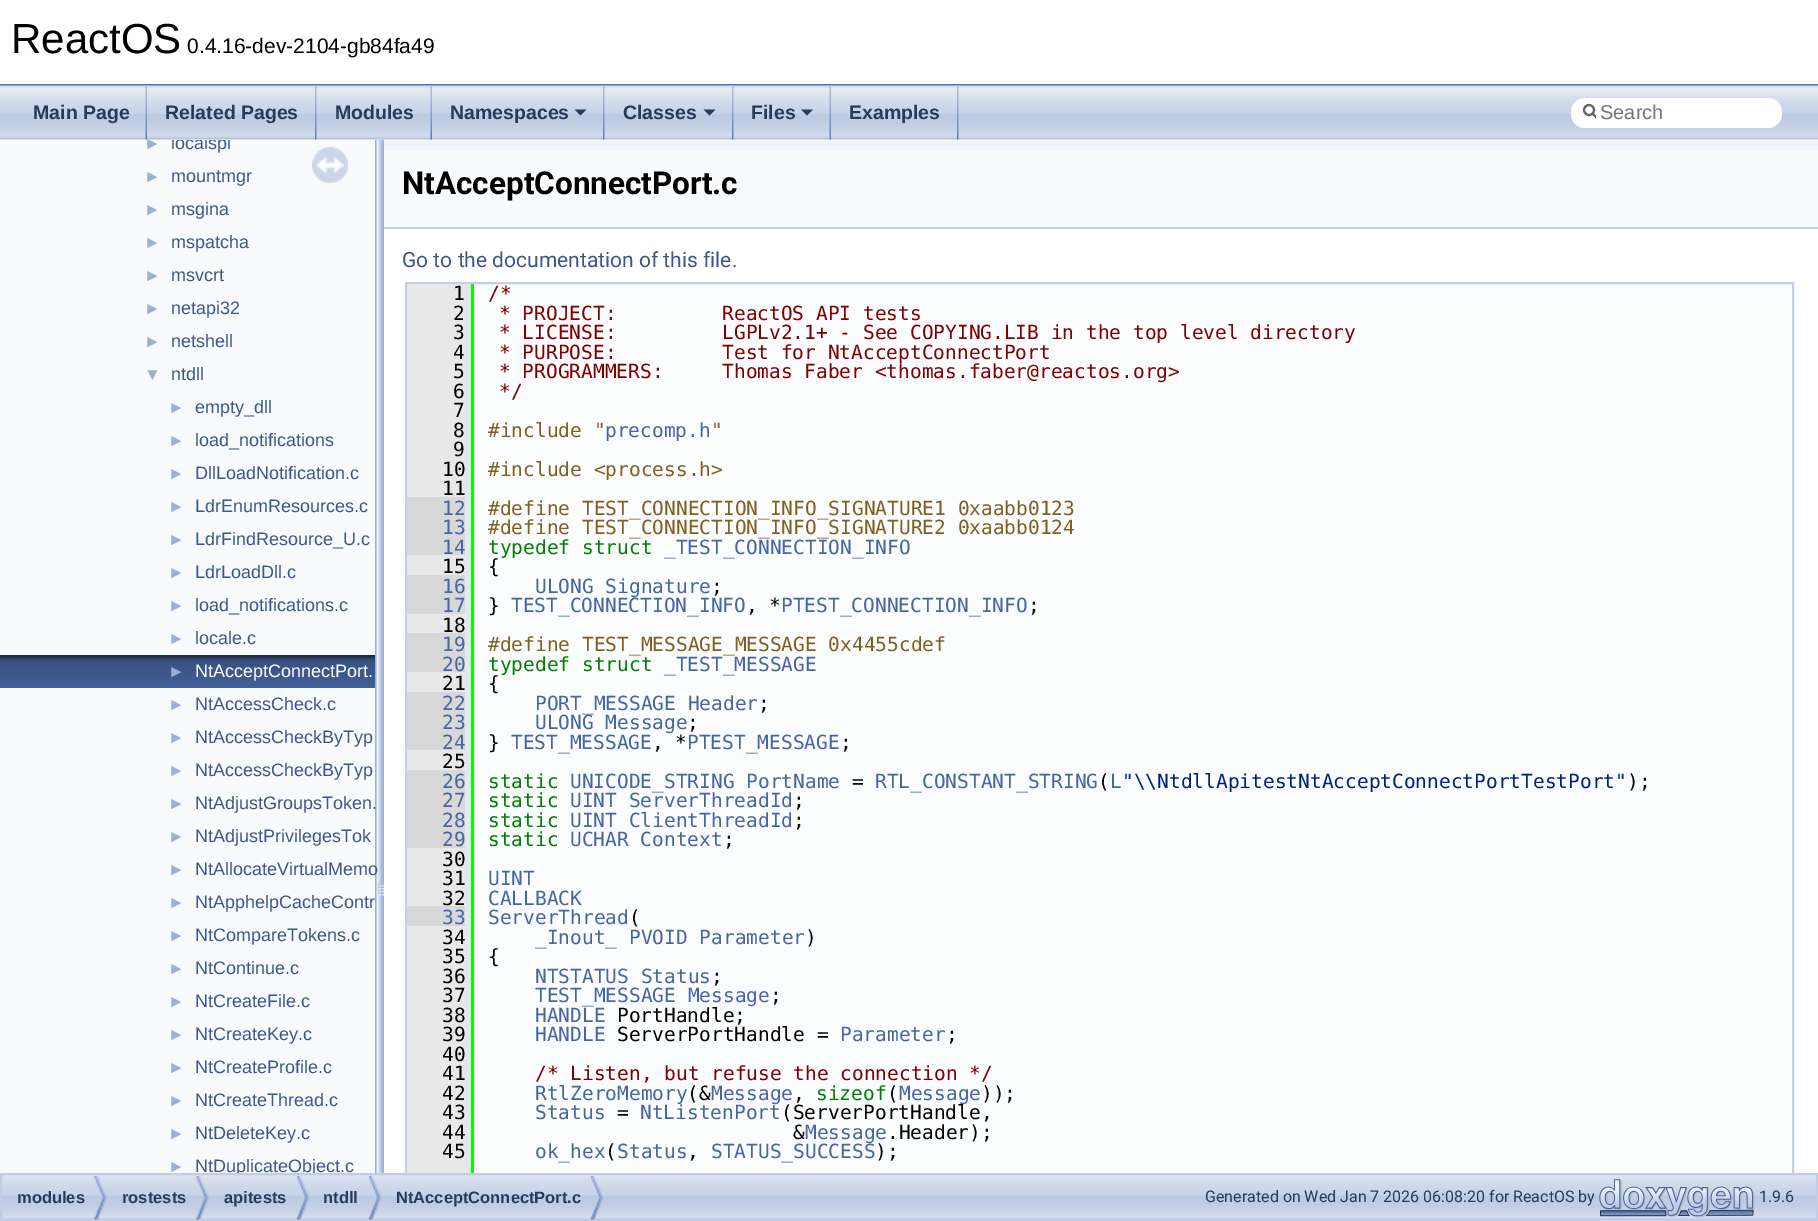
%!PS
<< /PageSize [1818 1221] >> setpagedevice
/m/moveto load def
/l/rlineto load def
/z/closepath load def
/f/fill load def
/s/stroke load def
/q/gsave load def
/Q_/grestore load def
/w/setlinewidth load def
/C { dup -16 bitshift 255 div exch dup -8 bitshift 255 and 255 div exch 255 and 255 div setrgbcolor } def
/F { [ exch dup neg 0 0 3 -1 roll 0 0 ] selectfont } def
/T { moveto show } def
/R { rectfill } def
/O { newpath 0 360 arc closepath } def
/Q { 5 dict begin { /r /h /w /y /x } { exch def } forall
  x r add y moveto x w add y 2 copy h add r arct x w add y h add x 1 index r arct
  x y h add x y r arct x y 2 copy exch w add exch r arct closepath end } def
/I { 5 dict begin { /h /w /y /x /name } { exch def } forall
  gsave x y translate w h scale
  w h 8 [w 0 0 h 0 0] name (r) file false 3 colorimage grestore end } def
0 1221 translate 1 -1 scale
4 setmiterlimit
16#FFFFFF C
0 0 1818 1221 R
16#5373B4 C
0 84 1818 2 R
/LiberationSans-Regular 42 F
16#000000 C
(ReactOS) 11 53 T
/LiberationSans-Regular 21 F
(0.4.16-dev-2104-gb84fa49) 187 53 T
(6.rgb) 375 139 9 1034 I
(1.rgb) 0 85 1818 55 I
(2.rgb) 145 85 2 55 I
/LiberationSans-Bold 19.5 F
16#283A5D C
(Main Page) 33 119 T
(3.rgb) 315 85 2 55 I
(Related Pages) 165 119 T
(2.rgb) 430 85 2 55 I
(Modules) 335 119 T
(3.rgb) 603 85 2 55 I
(Namespaces) 450 119 T
574.5 109.5 m 12 0 l -6 6 l z f
(3.rgb) 732 85 2 55 I
(Classes) 623 119 T
703.5 109.5 m 12 0 l -6 6 l z f
(2.rgb) 829 85 2 55 I
(Files) 751 119 T
801 109.5 m 12 0 l -6 6 l z f
(3.rgb) 957 85 2 55 I
(Examples) 849 119 T
16#FFFFFF C
1571 98 211 30 14 Q f
16#656565 C
2.1 w
1589 110 5 O s
q
1581 98 15 28 rectclip
1 setlinecap
1593 114 m 4.5 4.5 l s
Q_
/LiberationSans-Regular 20 F
16#757575 C
(Search) 1600 119 T
16#F9FAFC C
0 140 375 1033 R
/LiberationSans-Regular 17 F
16#9CAFD4 C
(►) 144 149 T
q
0 140 375 1033 rectclip
/LiberationSans-Regular 18 F
16#3D578C C
(localspl) 171 149 T
Q_
(►) 144 182 T
/LiberationSans-Regular 18 F
16#3D578C C
(mountmgr) 171 182 T
/LiberationSans-Regular 17 F
16#9CAFD4 C
(►) 144 215 T
/LiberationSans-Regular 18 F
16#3D578C C
(msgina) 171 215 T
/LiberationSans-Regular 17 F
16#9CAFD4 C
(►) 144 248 T
/LiberationSans-Regular 18 F
16#3D578C C
(mspatcha) 171 248 T
/LiberationSans-Regular 17 F
16#9CAFD4 C
(►) 144 281 T
/LiberationSans-Regular 18 F
16#3D578C C
(msvcrt) 171 281 T
/LiberationSans-Regular 17 F
16#9CAFD4 C
(►) 144 314 T
/LiberationSans-Regular 18 F
16#3D578C C
(netapi32) 171 314 T
/LiberationSans-Regular 17 F
16#9CAFD4 C
(►) 144 347 T
/LiberationSans-Regular 18 F
16#3D578C C
(netshell) 171 347 T
/LiberationSans-Regular 17 F
16#9CAFD4 C
(▼) 144 380 T
/LiberationSans-Regular 18 F
16#3D578C C
(ntdll) 171 380 T
/LiberationSans-Regular 17 F
16#9CAFD4 C
(►) 168 413 T
/LiberationSans-Regular 18 F
16#3D578C C
(empty_dll) 195 413 T
/LiberationSans-Regular 17 F
16#9CAFD4 C
(►) 168 446 T
/LiberationSans-Regular 18 F
16#3D578C C
(load_notifications) 195 446 T
/LiberationSans-Regular 17 F
16#9CAFD4 C
(►) 168 479 T
/LiberationSans-Regular 18 F
16#3D578C C
(DllLoadNotification.c) 195 479 T
/LiberationSans-Regular 17 F
16#9CAFD4 C
(►) 168 512 T
/LiberationSans-Regular 18 F
16#3D578C C
(LdrEnumResources.c) 195 512 T
/LiberationSans-Regular 17 F
16#9CAFD4 C
(►) 168 545 T
/LiberationSans-Regular 18 F
16#3D578C C
(LdrFindResource_U.c) 195 545 T
/LiberationSans-Regular 17 F
16#9CAFD4 C
(►) 168 578 T
/LiberationSans-Regular 18 F
16#3D578C C
(LdrLoadDll.c) 195 578 T
/LiberationSans-Regular 17 F
16#9CAFD4 C
(►) 168 611 T
/LiberationSans-Regular 18 F
16#3D578C C
(load_notifications.c) 195 611 T
/LiberationSans-Regular 17 F
16#9CAFD4 C
(►) 168 644 T
/LiberationSans-Regular 18 F
16#3D578C C
(locale.c) 195 644 T
(4.rgb) 0 655 375 33 I
/LiberationSans-Regular 17 F
16#9CAFD4 C
(►) 168 677 T
/LiberationSans-Regular 18 F
16#FFFFFF C
(NtAcceptConnectPort.) 195 677 T
/LiberationSans-Regular 17 F
16#9CAFD4 C
(►) 168 710 T
/LiberationSans-Regular 18 F
16#3D578C C
(NtAccessCheck.c) 195 710 T
/LiberationSans-Regular 17 F
16#9CAFD4 C
(►) 168 743 T
/LiberationSans-Regular 18 F
16#3D578C C
(NtAccessCheckByTyp) 195 743 T
/LiberationSans-Regular 17 F
16#9CAFD4 C
(►) 168 776 T
/LiberationSans-Regular 18 F
16#3D578C C
(NtAccessCheckByTyp) 195 776 T
/LiberationSans-Regular 17 F
16#9CAFD4 C
(►) 168 809 T
/LiberationSans-Regular 18 F
16#3D578C C
(NtAdjustGroupsToken.) 195 809 T
/LiberationSans-Regular 17 F
16#9CAFD4 C
(►) 168 842 T
/LiberationSans-Regular 18 F
16#3D578C C
(NtAdjustPrivilegesTok) 195 842 T
/LiberationSans-Regular 17 F
16#9CAFD4 C
(►) 168 875 T
/LiberationSans-Regular 18 F
16#3D578C C
(NtAllocateVirtualMemo) 195 875 T
/LiberationSans-Regular 17 F
16#9CAFD4 C
(►) 168 908 T
/LiberationSans-Regular 18 F
16#3D578C C
(NtApphelpCacheContr) 195 908 T
/LiberationSans-Regular 17 F
16#9CAFD4 C
(►) 168 941 T
/LiberationSans-Regular 18 F
16#3D578C C
(NtCompareTokens.c) 195 941 T
/LiberationSans-Regular 17 F
16#9CAFD4 C
(►) 168 974 T
/LiberationSans-Regular 18 F
16#3D578C C
(NtContinue.c) 195 974 T
/LiberationSans-Regular 17 F
16#9CAFD4 C
(►) 168 1007 T
/LiberationSans-Regular 18 F
16#3D578C C
(NtCreateFile.c) 195 1007 T
/LiberationSans-Regular 17 F
16#9CAFD4 C
(►) 168 1040 T
/LiberationSans-Regular 18 F
16#3D578C C
(NtCreateKey.c) 195 1040 T
/LiberationSans-Regular 17 F
16#9CAFD4 C
(►) 168 1073 T
/LiberationSans-Regular 18 F
16#3D578C C
(NtCreateProfile.c) 195 1073 T
/LiberationSans-Regular 17 F
16#9CAFD4 C
(►) 168 1106 T
/LiberationSans-Regular 18 F
16#3D578C C
(NtCreateThread.c) 195 1106 T
/LiberationSans-Regular 17 F
16#9CAFD4 C
(►) 168 1139 T
/LiberationSans-Regular 18 F
16#3D578C C
(NtDeleteKey.c) 195 1139 T
/LiberationSans-Regular 17 F
16#9CAFD4 C
(►) 168 1172 T
q
0 140 375 1033 rectclip
/LiberationSans-Regular 18 F
16#3D578C C
(NtDuplicateObject.c) 195 1172 T
Q_
(5.rgb) 312 147 36 36 I
16#F9FAFC C
384 140 1434 87 R
(7.rgb) 384 141 1434 10 I
16#C4CFE5 C
384 227 1434 2 R
/Roboto-Bold 31.5 F
16#000000 C
(NtAcceptConnectPort.c) 402 194 T
/Roboto-Regular 21 F
16#3D578C C
(Go to the documentation of this file.) 402 267 T
16#FBFCFD C
474 284 1318 889 R
16#C4CFE5 C
2 w
406 283 1387 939 rectstroke
16#E8E8E8 C
407 284 64 213 R
/DejaVuSansMono-Regular 19.5 F
16#000000 C
(1) 453 300 T
16#00FF00 C
471 284 3 889 R
16#800000 C
(/*) 488 300 T
16#000000 C
(2) 453 320 T
16#800000 C
(* PROJECT:         ReactOS API tests) 499 320 T
16#000000 C
(3) 453 339 T
16#800000 C
(* LICENSE:         LGPLv2.1+ - See COPYING.LIB in the top level directory) 499 339 T
16#000000 C
(4) 453 359 T
16#800000 C
(* PURPOSE:         Test for NtAcceptConnectPort) 499 359 T
16#000000 C
(5) 453 378 T
16#800000 C
(* PROGRAMMERS:     Thomas Faber <thomas.faber@reactos.org>) 499 378 T
16#000000 C
(6) 453 398 T
16#800000 C
(*/) 499 398 T
16#000000 C
(7) 453 417 T
(8) 453 437 T
16#806020 C
(#include ") 488 437 T
16#4665A2 C
(precomp.h) 605 437 T
16#806020 C
(") 711 437 T
16#000000 C
(9) 453 456 T
(10) 442 476 T
16#806020 C
(#include <process.h>) 488 476 T
16#000000 C
(11) 442 495 T
16#D8D8D8 C
407 497 58 58 R
16#4665A2 C
(12) 442 515 T
16#E8E8E8 C
465 497 6 58 R
16#806020 C
(#define TEST_CONNECTION_INFO_SIGNATURE1 0xaabb0123) 488 515 T
16#4665A2 C
(13) 442 534 T
16#806020 C
(#define TEST_CONNECTION_INFO_SIGNATURE2 0xaabb0124) 488 534 T
16#4665A2 C
(14) 442 554 T
16#008000 C
(typedef struct) 488 554 T
16#4665A2 C
(_TEST_CONNECTION_INFO) 664 554 T
16#E8E8E8 C
407 555 64 20 R
16#000000 C
(15) 442 573 T
({) 488 573 T
16#D8D8D8 C
407 575 58 39 R
16#4665A2 C
(16) 442 593 T
16#E8E8E8 C
465 575 6 39 R
16#4665A2 C
(ULONG Signature) 535 593 T
16#000000 C
(;) 711 593 T
16#4665A2 C
(17) 442 612 T
16#000000 C
(}) 488 612 T
16#4665A2 C
(TEST_CONNECTION_INFO) 511 612 T
16#000000 C
(, *) 746 612 T
16#4665A2 C
(PTEST_CONNECTION_INFO) 781 612 T
16#000000 C
(;) 1028 612 T
16#E8E8E8 C
407 614 64 19 R
16#000000 C
(18) 442 632 T
16#D8D8D8 C
407 633 58 39 R
16#4665A2 C
(19) 442 651 T
16#E8E8E8 C
465 633 6 39 R
16#806020 C
(#define TEST_MESSAGE_MESSAGE 0x4455cdef) 488 651 T
16#4665A2 C
(20) 442 671 T
16#008000 C
(typedef struct) 488 671 T
16#4665A2 C
(_TEST_MESSAGE) 664 671 T
16#E8E8E8 C
407 672 64 20 R
16#000000 C
(21) 442 690 T
({) 488 690 T
16#D8D8D8 C
407 692 58 58 R
16#4665A2 C
(22) 442 710 T
16#E8E8E8 C
465 692 6 58 R
16#4665A2 C
(PORT_MESSAGE Header) 535 710 T
16#000000 C
(;) 758 710 T
16#4665A2 C
(23) 442 729 T
(ULONG Message) 535 729 T
16#000000 C
(;) 687 729 T
16#4665A2 C
(24) 442 749 T
16#000000 C
(}) 488 749 T
16#4665A2 C
(TEST_MESSAGE) 511 749 T
16#000000 C
(, *) 652 749 T
16#4665A2 C
(PTEST_MESSAGE) 687 749 T
16#000000 C
(;) 840 749 T
16#E8E8E8 C
407 750 64 20 R
16#000000 C
(25) 442 768 T
16#D8D8D8 C
407 770 58 78 R
16#4665A2 C
(26) 442 788 T
16#E8E8E8 C
465 770 6 78 R
16#008000 C
(static) 488 788 T
16#4665A2 C
(UNICODE_STRING PortName) 570 788 T
(RTL_CONSTANT_STRING L) 875 788 T
16#000000 C
(=) 852 788 T
(\() 1098 788 T
16#002080 C
("\\\\NtdllApitestNtAcceptConnectPortTestPort") 1122 788 T
16#000000 C
(\);) 1627 788 T
16#4665A2 C
(27) 442 807 T
16#008000 C
(static) 488 807 T
16#4665A2 C
(UINT ServerThreadId) 570 807 T
16#000000 C
(;) 793 807 T
16#4665A2 C
(28) 442 827 T
16#008000 C
(static) 488 827 T
16#4665A2 C
(UINT ClientThreadId) 570 827 T
16#000000 C
(;) 793 827 T
16#4665A2 C
(29) 442 846 T
16#008000 C
(static) 488 846 T
16#4665A2 C
(UCHAR Context) 570 846 T
16#000000 C
(;) 723 846 T
16#E8E8E8 C
407 848 64 58 R
16#000000 C
(30) 442 866 T
(31) 442 885 T
16#4665A2 C
(UINT) 488 885 T
16#000000 C
(32) 442 905 T
16#4665A2 C
(CALLBACK) 488 905 T
16#D8D8D8 C
407 906 58 20 R
16#4665A2 C
(33) 442 924 T
16#E8E8E8 C
465 906 6 20 R
16#4665A2 C
(ServerThread) 488 924 T
16#000000 C
(\() 629 924 T
16#E8E8E8 C
407 926 64 247 R
16#000000 C
(34) 442 944 T
16#4665A2 C
(_Inout_ PVOID Parameter) 535 944 T
16#000000 C
(\)) 805 944 T
(35) 442 963 T
({) 488 963 T
(36) 442 983 T
16#4665A2 C
(NTSTATUS Status) 535 983 T
16#000000 C
(;) 711 983 T
(37) 442 1002 T
16#4665A2 C
(TEST_MESSAGE Message) 535 1002 T
16#000000 C
(;) 770 1002 T
(38) 442 1022 T
16#4665A2 C
(HANDLE) 535 1022 T
16#000000 C
(PortHandle;) 617 1022 T
(39) 442 1041 T
16#4665A2 C
(HANDLE) 535 1041 T
16#000000 C
(ServerPortHandle =) 617 1041 T
16#4665A2 C
(Parameter) 840 1041 T
16#000000 C
(;) 946 1041 T
(40) 442 1061 T
(41) 442 1080 T
16#800000 C
(/* Listen, but refuse the connection */) 535 1080 T
16#000000 C
(42) 442 1100 T
16#4665A2 C
(RtlZeroMemory) 535 1100 T
16#000000 C
(\(&) 687 1100 T
16#4665A2 C
(Message) 711 1100 T
16#000000 C
(,) 793 1100 T
16#008000 C
(sizeof) 816 1100 T
16#000000 C
(\() 887 1100 T
16#4665A2 C
(Message) 899 1100 T
16#000000 C
(\)\);) 981 1100 T
(43) 442 1119 T
16#4665A2 C
(Status) 535 1119 T
16#000000 C
(=) 617 1119 T
16#4665A2 C
(NtListenPort) 640 1119 T
16#000000 C
(\(ServerPortHandle,) 781 1119 T
(44) 442 1139 T
(&) 793 1139 T
16#4665A2 C
(Message) 805 1139 T
16#000000 C
(.Header\);) 887 1139 T
(45) 442 1158 T
16#4665A2 C
(ok_hex Status) 535 1158 T
16#000000 C
(\() 605 1158 T
(,) 687 1158 T
16#4665A2 C
(STATUS_SUCCESS) 711 1158 T
16#000000 C
(\);) 875 1158 T
(8.rgb) 2 1175 1814 44 I
16#C2CDE4 C
1 1174 1816 46 rectstroke
(9.rgb) 94 1176 13 44 I
/LiberationSans-Bold 16.5 F
16#283A5D C
(modules) 17 1203 T
(9.rgb) 196 1176 13 44 I
(rostests) 122 1203 T
(10.rgb) 297 1176 12 44 I
(apitests) 224 1203 T
(10.rgb) 369 1176 12 44 I
(ntdll) 323 1203 T
(10.rgb) 591 1176 12 44 I
(NtAcceptConnectPort.c) 396 1203 T
/Roboto-Regular 16 F
(Generated on Wed Jan 7 2026 06:08:20 for ReactOS by) 1205 1202 T
(11.rgb) 1599 1179 156 39 I
(1.9.6) 1759 1202 T
showpage
